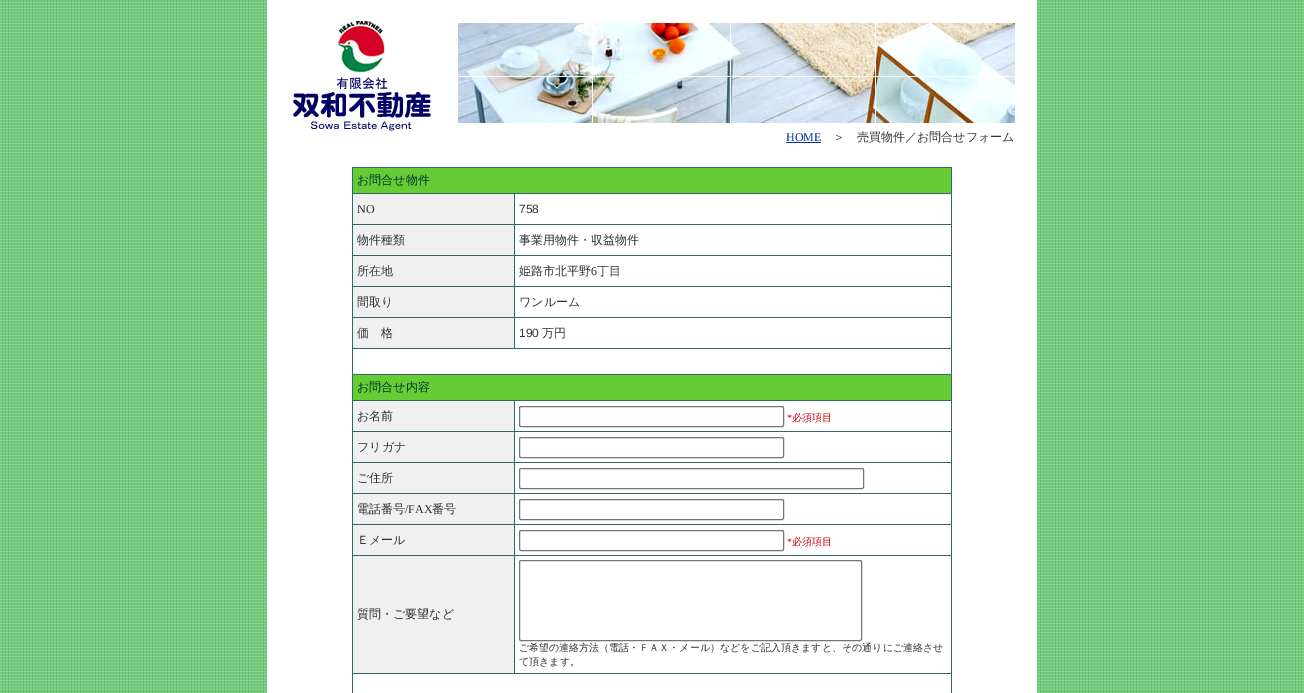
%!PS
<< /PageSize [1304 693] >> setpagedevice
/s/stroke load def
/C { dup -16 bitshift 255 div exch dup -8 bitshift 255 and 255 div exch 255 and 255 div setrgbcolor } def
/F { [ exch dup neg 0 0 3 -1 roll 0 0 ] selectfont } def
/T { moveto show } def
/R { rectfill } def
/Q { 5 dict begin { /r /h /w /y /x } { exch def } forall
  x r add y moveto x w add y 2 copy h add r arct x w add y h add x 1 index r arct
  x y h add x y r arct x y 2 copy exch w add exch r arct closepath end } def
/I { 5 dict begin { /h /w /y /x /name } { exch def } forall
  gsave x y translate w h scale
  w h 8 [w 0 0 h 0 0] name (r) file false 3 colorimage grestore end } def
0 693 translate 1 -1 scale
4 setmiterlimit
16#FFFFFF C
0 0 1304 693 R
(1.rgb) 0 0 1304 693 I
267 0 770 693 R
(2.rgb) 338 21 48 52 I
(3.rgb) 293 77 138 54 I
(4.rgb) 458 23 557 100 I
/LiberationSerif-Regular 12 F
16#003399 C
(HOME) 786 141 T
786 142 35 1 R
/WenQuanYiZenHei-Medium 12 F
16#333333 C
(＞　売買物件／お問合せフォーム) 833 141 T
16#336666 C
352 167 600 526 R
16#66CC33 C
353 168 598 25 R
16#003333 C
(お問合せ物件) 357 184 T
16#F0F0F0 C
353 194 161 30 R
/LiberationSerif-Regular 12 F
16#333333 C
(NO) 357 213 T
16#FFFFFF C
515 194 436 30 R
/LiberationSans-Regular 12 F
16#333333 C
(758) 519 213 T
16#F0F0F0 C
353 225 161 30 R
/WenQuanYiZenHei-Medium 12 F
16#333333 C
(物件種類) 357 244 T
16#FFFFFF C
515 225 436 30 R
16#333333 C
(事業用物件・収益物件) 519 244 T
16#F0F0F0 C
353 256 161 30 R
16#333333 C
(所在地) 357 275 T
16#FFFFFF C
515 256 436 30 R
16#333333 C
(姫路市北平野) 519 275 T
/LiberationSerif-Regular 12 F
(6) 591 275 T
/WenQuanYiZenHei-Medium 12 F
(丁目) 597 275 T
16#F0F0F0 C
353 287 161 30 R
16#333333 C
(間取り) 357 306 T
16#FFFFFF C
515 287 436 30 R
16#333333 C
(ワンルーム) 519 306 T
16#F0F0F0 C
353 318 161 30 R
16#333333 C
(価　格) 357 337 T
16#FFFFFF C
515 318 436 30 R
/LiberationSans-Regular 12 F
16#333333 C
(190) 519 337 T
/WenQuanYiZenHei-Medium 12 F
(万円) 542 337 T
16#FFFFFF C
353 349 598 25 R
16#66CC33 C
353 375 598 25 R
16#003333 C
(お問合せ内容) 357 391 T
16#F0F0F0 C
353 401 161 30 R
16#333333 C
(お名前) 357 420 T
16#FFFFFF C
515 401 436 30 R
16#767676 C
519.5 406.5 264 20 1.5 Q s
/LiberationSerif-Regular 10 F
16#CC0000 C
(*) 787 421 T
/WenQuanYiZenHei-Medium 10 F
(必須項目) 792 421 T
16#F0F0F0 C
353 432 161 30 R
/WenQuanYiZenHei-Medium 12 F
16#333333 C
(フリガナ) 357 451 T
16#FFFFFF C
515 432 436 30 R
16#767676 C
519.5 437.5 264 20 1.5 Q s
16#F0F0F0 C
353 463 161 30 R
16#333333 C
(ご住所) 357 482 T
16#FFFFFF C
515 463 436 30 R
16#767676 C
519.5 468.5 344 20 1.5 Q s
16#F0F0F0 C
353 494 161 30 R
16#333333 C
(電話番号) 357 513 T
/LiberationSerif-Regular 12 F
(/FAX) 405 513 T
/WenQuanYiZenHei-Medium 12 F
(番号) 432 513 T
16#FFFFFF C
515 494 436 30 R
16#767676 C
519.5 499.5 264 20 1.5 Q s
16#F0F0F0 C
353 525 161 30 R
16#333333 C
(Ｅメール) 357 544 T
16#FFFFFF C
515 525 436 30 R
16#767676 C
519.5 530.5 264 20 1.5 Q s
/LiberationSerif-Regular 10 F
16#CC0000 C
(*) 787 545 T
/WenQuanYiZenHei-Medium 10 F
(必須項目) 792 545 T
16#F0F0F0 C
353 556 161 117 R
/WenQuanYiZenHei-Medium 12 F
16#333333 C
(質問・ご要望など) 357 618 T
16#FFFFFF C
515 556 436 117 R
16#767676 C
519.5 560.5 342 80 1.5 Q s
/WenQuanYiZenHei-Medium 10 F
16#333333 C
(ご希望の連絡方法（電話・ＦＡＸ・メール）などをご記入頂きますと、その通りにご連絡させ) 519 651 T
(て頂きます。) 519 665 T
16#FFFFFF C
353 674 598 19 R
showpage
